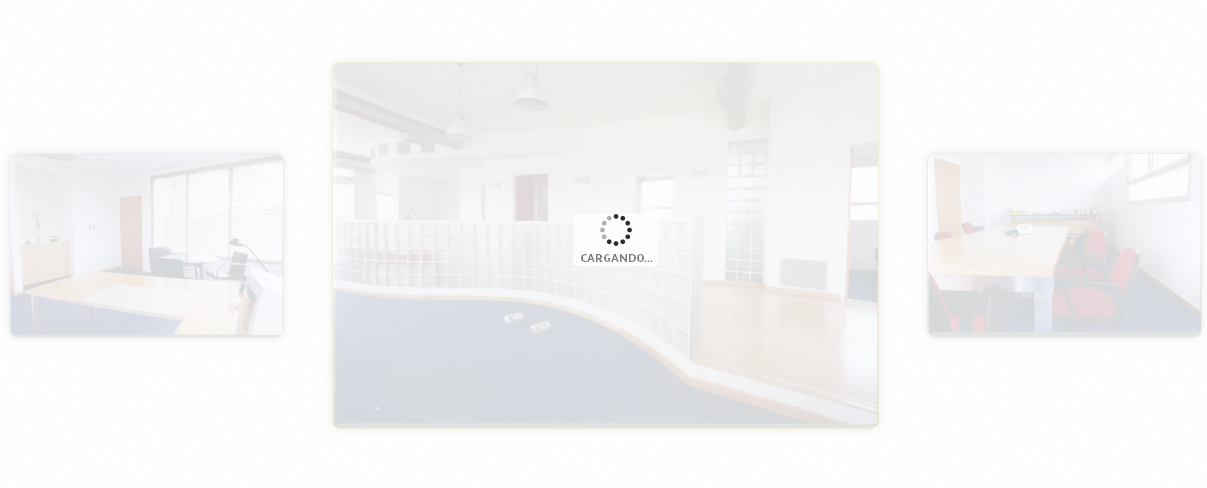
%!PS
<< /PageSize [1207 488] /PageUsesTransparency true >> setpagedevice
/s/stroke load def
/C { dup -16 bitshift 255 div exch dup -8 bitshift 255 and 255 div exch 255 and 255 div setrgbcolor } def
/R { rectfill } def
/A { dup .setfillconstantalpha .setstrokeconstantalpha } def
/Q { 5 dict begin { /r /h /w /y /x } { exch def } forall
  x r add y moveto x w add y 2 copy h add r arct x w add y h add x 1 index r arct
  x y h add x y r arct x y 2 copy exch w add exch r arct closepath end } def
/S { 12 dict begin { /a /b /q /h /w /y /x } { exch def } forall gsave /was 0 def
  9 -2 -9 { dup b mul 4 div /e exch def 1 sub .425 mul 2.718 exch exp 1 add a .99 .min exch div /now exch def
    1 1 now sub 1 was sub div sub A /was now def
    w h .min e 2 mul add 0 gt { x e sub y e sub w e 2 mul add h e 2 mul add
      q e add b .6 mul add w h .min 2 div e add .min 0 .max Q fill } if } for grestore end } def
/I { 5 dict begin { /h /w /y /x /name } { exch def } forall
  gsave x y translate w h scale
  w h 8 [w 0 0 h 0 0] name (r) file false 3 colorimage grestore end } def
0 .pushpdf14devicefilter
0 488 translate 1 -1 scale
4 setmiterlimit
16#FFFFFF C
0 0 1207 488 R
(1.rgb) 0 0 1207 488 I
16#D4D4D4 C
9 153 275 185 8 5 .4 S
16#F1EEDE C
9.5 153.5 274 184 7.5 Q s
(2.rgb) 10 154 273 183 I
16#D4D4D4 C
332 62 547 367 8 5 .4 S
16#F1EEDE C
332.5 62.5 546 366 7.5 Q s
(3.rgb) 333 63 545 365 I
16#D4D4D4 C
927 153 275 185 8 5 .4 S
16#F1EEDE C
927.5 153.5 274 184 7.5 Q s
(4.rgb) 928 154 273 183 I
(5.rgb) 574 214 84 52 I
.poppdf14devicefilter showpage
